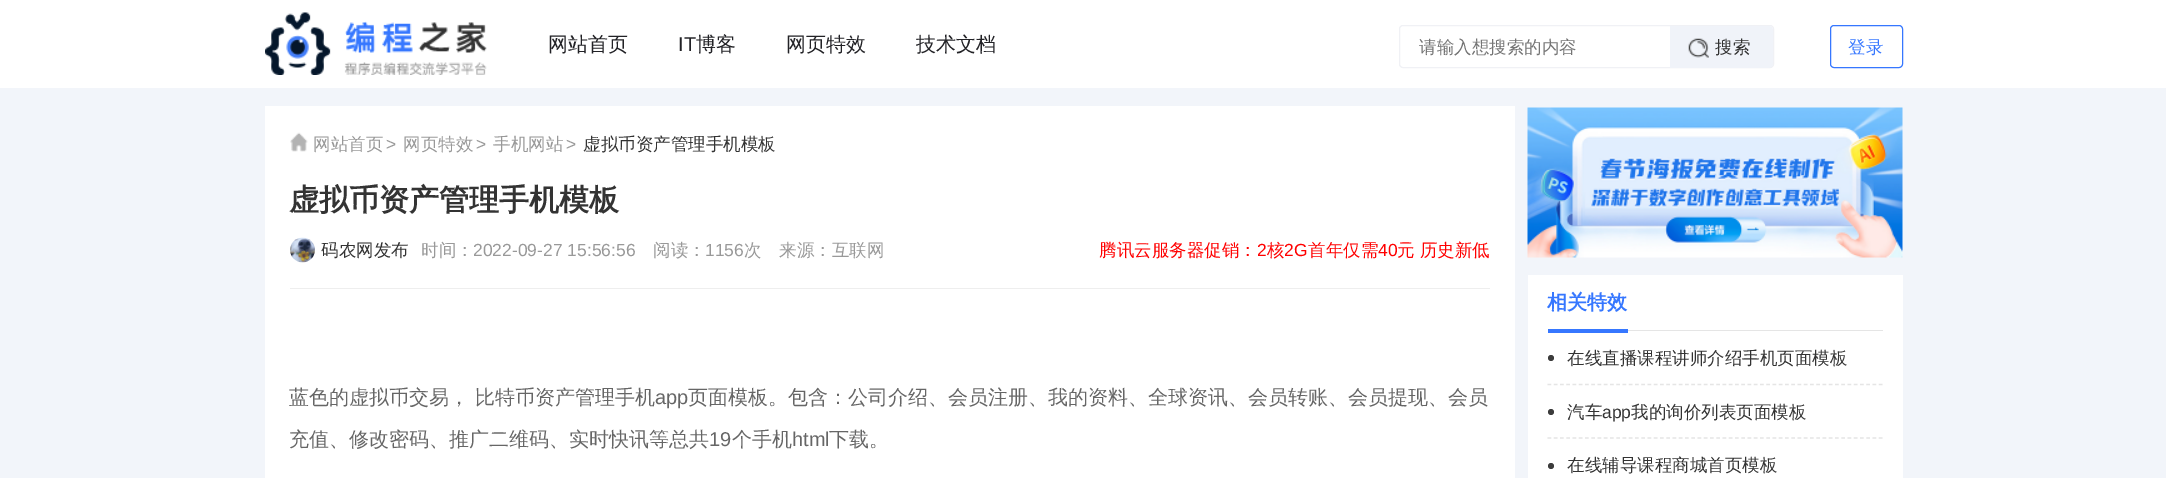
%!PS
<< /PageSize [2166 478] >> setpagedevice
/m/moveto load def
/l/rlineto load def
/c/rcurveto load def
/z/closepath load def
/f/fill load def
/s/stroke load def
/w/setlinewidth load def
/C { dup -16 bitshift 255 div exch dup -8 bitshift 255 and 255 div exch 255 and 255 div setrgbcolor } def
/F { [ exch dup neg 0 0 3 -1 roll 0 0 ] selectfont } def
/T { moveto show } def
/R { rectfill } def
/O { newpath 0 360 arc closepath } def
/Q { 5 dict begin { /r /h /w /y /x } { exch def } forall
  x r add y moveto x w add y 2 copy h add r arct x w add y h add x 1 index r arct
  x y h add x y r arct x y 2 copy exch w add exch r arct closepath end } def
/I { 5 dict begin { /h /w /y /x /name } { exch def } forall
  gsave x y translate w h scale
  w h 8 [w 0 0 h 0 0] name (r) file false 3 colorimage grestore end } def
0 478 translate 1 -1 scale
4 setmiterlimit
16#F2F5FA C
0 0 2166 478 R
16#FFFFFF C
0 0 2166 88 R
(1.rgb) 265 12 222 63 I
/WenQuanYiZenHei-Medium 20 F
16#222226 C
(网站首页) 548 51 T
/LiberationSans-Regular 20 F
(IT) 678 51 T
/WenQuanYiZenHei-Medium 20 F
(博客) 696 51 T
(网页特效) 786 51 T
(技术文档) 916 51 T
16#F0F1F5 C
1399.5 25.5 374 42 3.5 Q s
/WenQuanYiZenHei-Medium 17.5 F
16#757575 C
(请输入想搜索的内容) 1419 53 T
16#F0F3F9 C
1670 26 m 99 0 l 2 0 4 2 4 4 c 0 34 l 0 2 -2 4 -4 4 c -99 0 l z f
(2.rgb) 1688 38 21 20 I
16#333333 C
(搜索) 1715 53 T
16#3677FF C
1830.5 25.5 72 42 3.5 Q s
(登录) 1848 53 T
16#FFFFFF C
265 106 1250 372 R
16#EEEEEE C
290 288 1200 1 R
(3.rgb) 290 132 18 20 I
16#999999 C
(网站首页) 313 150 T
/LiberationSans-Regular 17.5 F
(>) 386 150 T
/WenQuanYiZenHei-Medium 17.5 F
(网页特效) 403 150 T
/LiberationSans-Regular 17.5 F
(>) 476 150 T
/WenQuanYiZenHei-Medium 17.5 F
(手机网站) 493 150 T
/LiberationSans-Regular 17.5 F
(>) 566 150 T
/WenQuanYiZenHei-Medium 17.5 F
16#333333 C
(虚拟币资产管理手机模板) 583 150 T
/WenQuanYiZenHei-Bold 30 F
(虚拟币资产管理手机模板) 289 210 T
(4.rgb) 290 237 25 26 I
/WenQuanYiZenHei-Medium 17.5 F
(码农网发布) 321 256 T
16#999999 C
(时间：) 421 256 T
/LiberationSans-Regular 17.5 F
(2022-09-27 15:56:56) 473 256 T
/WenQuanYiZenHei-Medium 17.5 F
(阅读：) 653 256 T
/LiberationSans-Regular 17.5 F
(1156) 705 256 T
/WenQuanYiZenHei-Medium 17.5 F
(次) 744 256 T
(来源：互联网) 779 256 T
16#FF0000 C
(腾讯云服务器促销：) 1099 256 T
/LiberationSans-Regular 17.5 F
(2) 1257 256 T
/WenQuanYiZenHei-Medium 17.5 F
(核) 1267 256 T
/LiberationSans-Regular 17.5 F
(2G) 1284 256 T
/WenQuanYiZenHei-Medium 17.5 F
(首年仅需) 1308 256 T
/LiberationSans-Regular 17.5 F
(40) 1378 256 T
/WenQuanYiZenHei-Medium 17.5 F
(元 历史新低) 1397 256 T
/WenQuanYiZenHei-Medium 20 F
16#666666 C
(蓝色的虚拟币交易， 比特币资产管理手机) 289 404 T
/LiberationSans-Regular 20 F
(app) 655 404 T
/WenQuanYiZenHei-Medium 20 F
(页面模板。包含：公司介绍、会员注册、我的资料、全球资讯、会员转账、会员提现、会员) 688 404 T
(充值、修改密码、推广二维码、实时快讯等总共) 289 446 T
/LiberationSans-Regular 20 F
(19) 709 446 T
/WenQuanYiZenHei-Medium 20 F
(个手机) 732 446 T
/LiberationSans-Regular 20 F
(html) 792 446 T
/WenQuanYiZenHei-Medium 20 F
(下载。) 829 446 T
(5.rgb) 1527 107 376 151 I
16#FFFFFF C
1528 275 375 203 R
16#E5E5E5 C
1628 330 255 1 R
/WenQuanYiZenHei-Bold 20 F
16#3677FF C
(相关特效) 1547 309 T
1548 329 80 4 R
16#3C3C3C C
1551 358 3 O f
/WenQuanYiZenHei-Medium 17.5 F
16#333333 C
(在线直播课程讲师介绍手机页面模板) 1567 364 T
16#E5E5E5 C
1.2 w
[3.75 2.5] 0 setdash
1547.5 384.5 m 335 0 l s
16#3C3C3C C
1551 412 3 O f
16#333333 C
(汽车) 1567 418 T
/LiberationSans-Regular 17.5 F
(app) 1602 418 T
/WenQuanYiZenHei-Medium 17.5 F
(我的询价列表页面模板) 1631 418 T
16#E5E5E5 C
1547.5 438 m 335 0 l s
16#3C3C3C C
1551 466 3 O f
16#333333 C
(在线辅导课程商城首页模板) 1567 471 T
showpage
